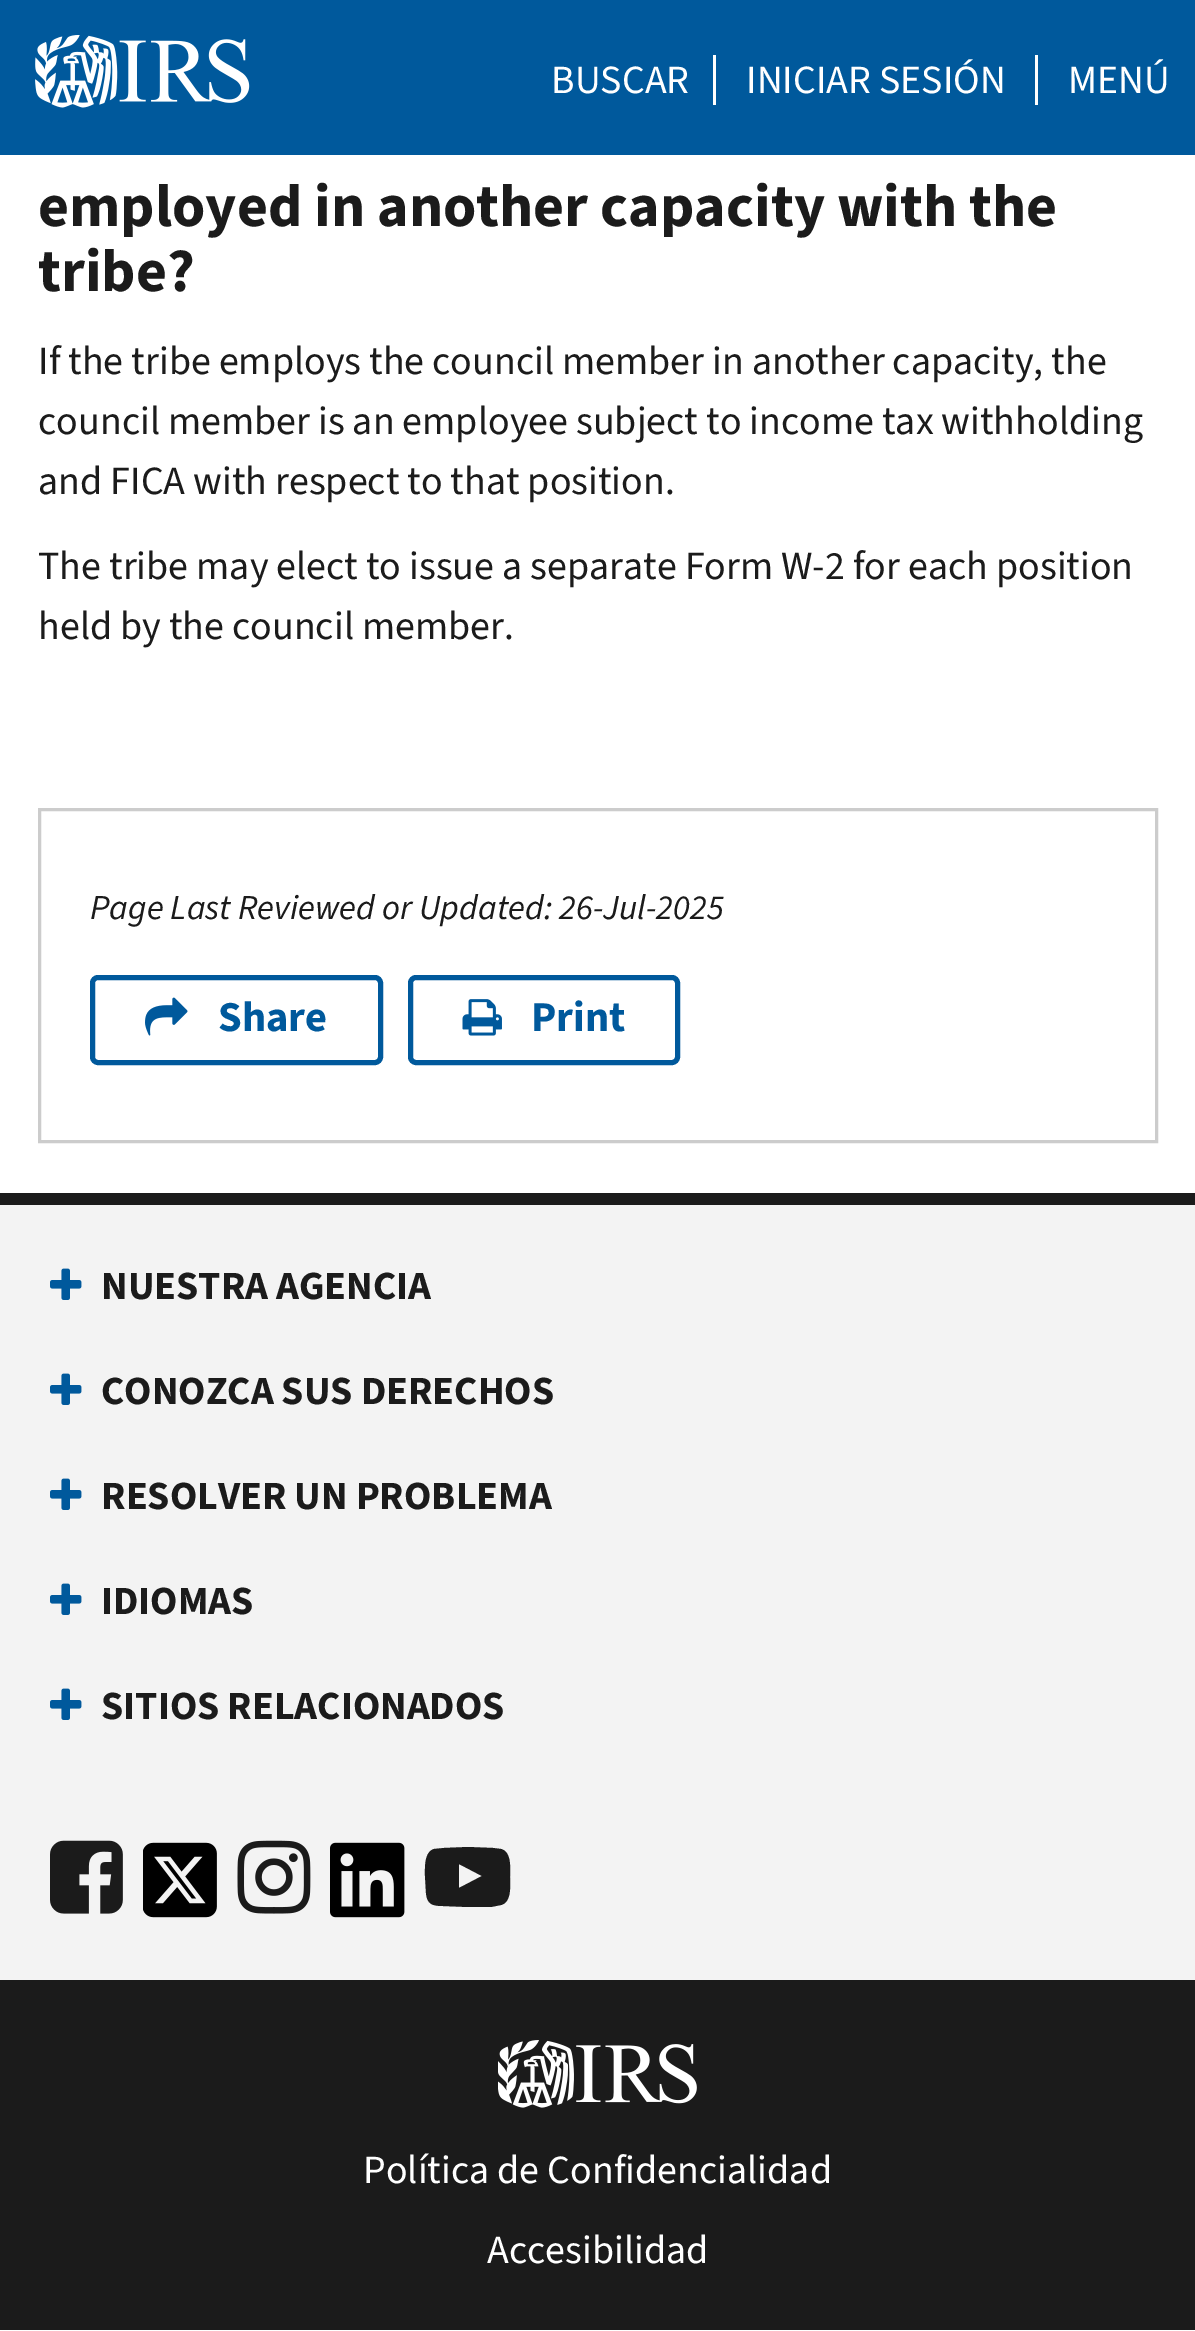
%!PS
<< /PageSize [1195 2331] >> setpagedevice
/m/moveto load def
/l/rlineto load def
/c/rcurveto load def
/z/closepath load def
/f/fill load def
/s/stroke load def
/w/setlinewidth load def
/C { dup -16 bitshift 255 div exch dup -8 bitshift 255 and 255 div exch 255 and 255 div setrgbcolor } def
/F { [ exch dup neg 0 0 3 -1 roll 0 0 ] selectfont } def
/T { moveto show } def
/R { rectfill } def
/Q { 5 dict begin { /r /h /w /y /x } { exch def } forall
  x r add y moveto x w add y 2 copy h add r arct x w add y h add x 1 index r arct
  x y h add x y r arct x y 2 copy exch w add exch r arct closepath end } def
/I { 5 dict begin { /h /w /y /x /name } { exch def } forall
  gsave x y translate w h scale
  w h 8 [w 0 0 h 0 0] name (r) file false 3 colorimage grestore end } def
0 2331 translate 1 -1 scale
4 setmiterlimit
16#FFFFFF C
0 0 1195 2331 R
16#00599C C
0 0 1195 155 R
(1.rgb) 35 35 215 73 I
16#FFFFFF C
713 55 3 50 R
/SourceSans3-Regular 40 F
(BUSCAR) 551 93 T
1035 55 3 50 R
(INICIAR SESIÓN) 746 93 T
(MENÚ) 1068 93 T
/SourceSans3-Bold 60 F
16#1B1B1B C
(employed in another capacity with the) 38 226 T
(tribe?) 38 291 T
/SourceSans3-Regular 40 F
(If the tribe employs the council member in another capacity, the) 38 374 T
(council member is an employee subject to income tax withholding) 38 434 T
(and FICA with respect to that position.) 38 494 T
(The tribe may elect to issue a separate Form W-2 for each position) 38 579 T
(held by the council member.) 38 639 T
16#CCCCCC C
3 w
39.5 809.5 1117 332 rectstroke
/SourceSans3-Italic 35 F
16#1B1B1B C
(Page Last Reviewed or Updated: 26-Jul-2025) 90 919 T
16#00599C C
5 w
92.5 977.5 288 85 5.5 Q s
(2.rgb) 145 997 43 39 I
/SourceSans3-Bold 42.5 F
(Share) 218 1031 T
410.5 977.5 267 85 5.5 Q s
(3.rgb) 462 999 40 37 I
(Print) 531 1031 T
16#F3F3F3 C
0 1205 1195 775 R
16#1B1B1B C
0 1193 1195 12 R
(4.rgb) 50 1268 32 32 I
/SourceSans3-Bold 40 F
(NUESTRA AGENCIA) 101 1299 T
(4.rgb) 50 1373 32 32 I
(CONOZCA SUS DERECHOS) 101 1404 T
(4.rgb) 50 1478 32 32 I
(RESOLVER UN PROBLEMA) 101 1509 T
(4.rgb) 50 1583 32 32 I
(IDIOMAS) 101 1614 T
(4.rgb) 50 1688 32 32 I
(SITIOS RELACIONADOS) 101 1719 T
(5.rgb) 50 1840 73 74 I
(6.rgb) 143 1842 74 76 I
(7.rgb) 237 1840 74 74 I
(8.rgb) 330 1842 75 76 I
459 1888 m 23 -12 l -23 -12 l z 468 1847 m 25 1 l 8 1 l 11 3 9 20 9 28 c 0 8 2 25 -9 28 c -10 2 l -23 0 l -25 -1 l -11 0 -16 -2 -17 -13 c -1 -17 l 0 -8 -1 -24 9 -27 c 10 -1 l z f
0 1980 1195 350 R
(9.rgb) 498 2040 199 68 I
/SourceSans3-Regular 40 F
16#FFFFFF C
(Política de Confidencialidad) 363 2183 T
(Accesibilidad) 487 2263 T
showpage
